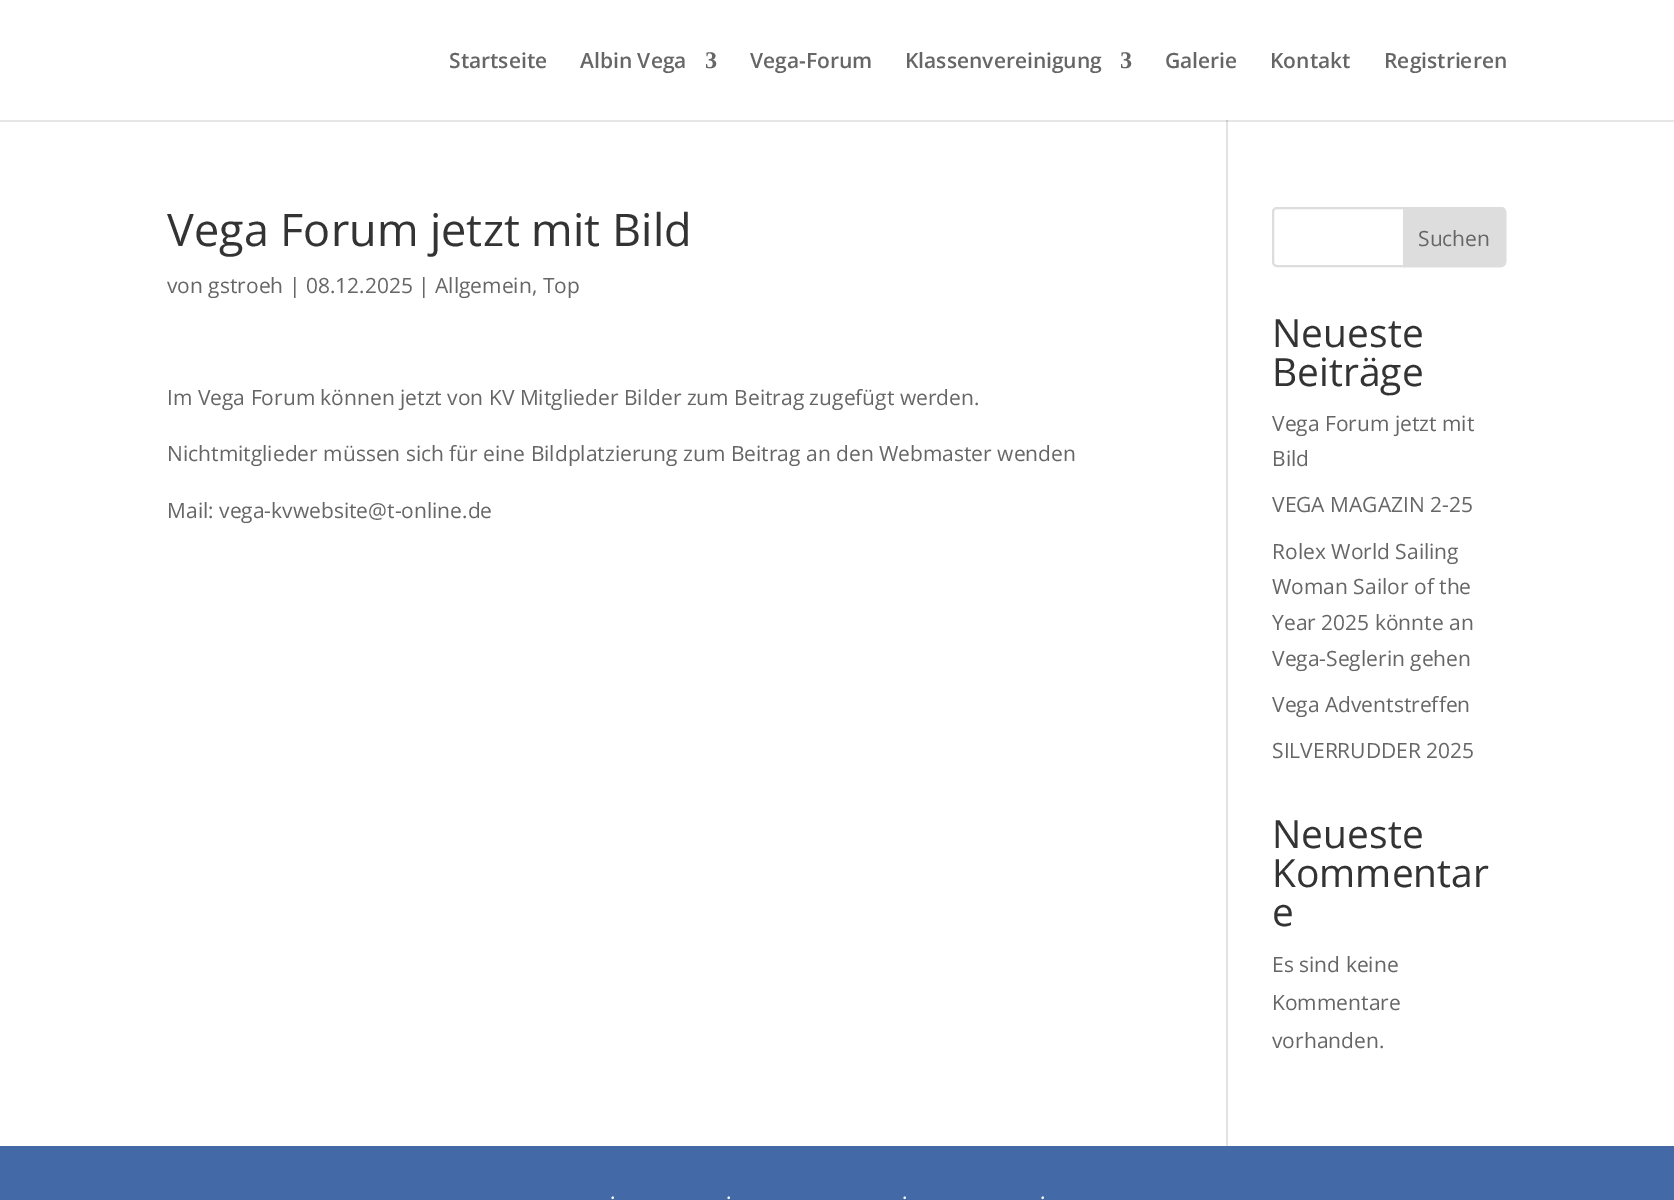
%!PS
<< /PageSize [1674 1200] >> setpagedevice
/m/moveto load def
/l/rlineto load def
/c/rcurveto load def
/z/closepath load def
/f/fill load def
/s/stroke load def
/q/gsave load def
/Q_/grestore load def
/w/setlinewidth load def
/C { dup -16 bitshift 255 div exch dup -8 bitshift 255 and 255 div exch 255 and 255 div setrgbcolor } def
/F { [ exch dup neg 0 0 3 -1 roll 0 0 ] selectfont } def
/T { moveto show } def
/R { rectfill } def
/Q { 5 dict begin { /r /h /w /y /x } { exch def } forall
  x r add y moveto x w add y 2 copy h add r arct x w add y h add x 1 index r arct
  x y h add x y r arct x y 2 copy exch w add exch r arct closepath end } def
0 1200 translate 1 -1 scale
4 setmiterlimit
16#FFFFFF C
0 0 1674 1200 R
16#E6E6E6 C
0 120 1674 2 R
/OpenSans-SemiBold 21 F
16#666666 C
(Startseite) 449 68 T
(Albin Vega) 580 68 T
/LiberationSerif-Bold 24 F
(3) 705 68 T
/OpenSans-SemiBold 21 F
(Vega-Forum) 750 68 T
(Klassenvereinigung) 905 68 T
/LiberationSerif-Bold 24 F
(3) 1120 68 T
/OpenSans-SemiBold 21 F
(Galerie) 1165 68 T
(Kontakt) 1270 68 T
(Registrieren) 1384 68 T
16#E2E2E2 C
1226 120 2 1026 R
16#CBCBCB C
1226 120 2 2 R
/OpenSans-Regular 45 F
16#333333 C
(Vega Forum jetzt mit Bild) 167 246 T
/OpenSans-Regular 21 F
16#666666 C
(von gstroeh | 08.12.2025 | Allgemein, Top) 167 293 T
(Im Vega Forum können jetzt von KV Mitglieder Bilder zum Beitrag zugefügt werden.) 167 405 T
(Nichtmitglieder müssen sich für eine Bildplatzierung zum Beitrag an den Webmaster wenden) 167 461 T
(Mail: vega-kvwebsite@t-online.de) 167 518 T
16#DDDDDD C
2 w
1273 208 232 58 4 Q s
1404 208 m 97 0 l 2 0 4 2 4 4 c 0 50 l 0 2 -2 4 -4 4 c -97 0 l z q f Q_
s
16#666666 C
(Suchen) 1418 246 T
/OpenSans-Regular 39 F
16#333333 C
(Neueste) 1272 347 T
(Beiträge) 1272 386 T
/OpenSans-Regular 21 F
16#666666 C
(Vega Forum jetzt mit) 1272 431 T
(Bild) 1272 466 T
(VEGA MAGAZIN 2-25) 1272 512 T
(Rolex World Sailing) 1272 559 T
(Woman Sailor of the) 1272 594 T
(Year 2025 könnte an) 1272 630 T
(Vega-Seglerin gehen) 1272 666 T
(Vega Adventstreffen) 1272 712 T
(SILVERRUDDER 2025) 1272 758 T
/OpenSans-Regular 39 F
16#333333 C
(Neueste) 1272 848 T
(Kommentar) 1272 887 T
(e) 1272 926 T
/OpenSans-Regular 21 F
16#666666 C
(Es sind keine) 1272 972 T
(Kommentare) 1272 1010 T
(vorhanden.) 1272 1048 T
16#4469A7 C
0 1146 1674 54 R
16#FFFFFF C
(·) 610 1205 T
(·) 726 1205 T
(·) 902 1205 T
(·) 1040 1205 T
showpage
